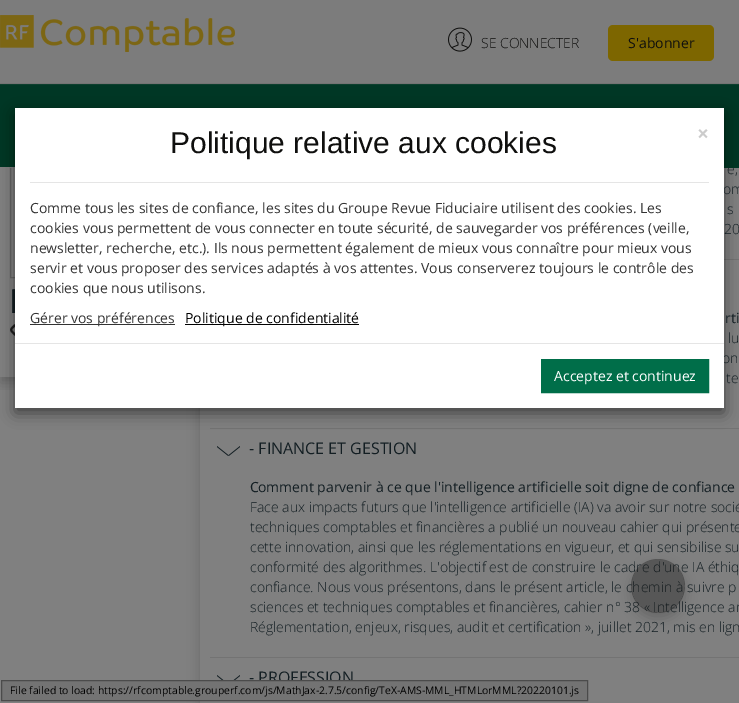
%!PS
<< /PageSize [739 703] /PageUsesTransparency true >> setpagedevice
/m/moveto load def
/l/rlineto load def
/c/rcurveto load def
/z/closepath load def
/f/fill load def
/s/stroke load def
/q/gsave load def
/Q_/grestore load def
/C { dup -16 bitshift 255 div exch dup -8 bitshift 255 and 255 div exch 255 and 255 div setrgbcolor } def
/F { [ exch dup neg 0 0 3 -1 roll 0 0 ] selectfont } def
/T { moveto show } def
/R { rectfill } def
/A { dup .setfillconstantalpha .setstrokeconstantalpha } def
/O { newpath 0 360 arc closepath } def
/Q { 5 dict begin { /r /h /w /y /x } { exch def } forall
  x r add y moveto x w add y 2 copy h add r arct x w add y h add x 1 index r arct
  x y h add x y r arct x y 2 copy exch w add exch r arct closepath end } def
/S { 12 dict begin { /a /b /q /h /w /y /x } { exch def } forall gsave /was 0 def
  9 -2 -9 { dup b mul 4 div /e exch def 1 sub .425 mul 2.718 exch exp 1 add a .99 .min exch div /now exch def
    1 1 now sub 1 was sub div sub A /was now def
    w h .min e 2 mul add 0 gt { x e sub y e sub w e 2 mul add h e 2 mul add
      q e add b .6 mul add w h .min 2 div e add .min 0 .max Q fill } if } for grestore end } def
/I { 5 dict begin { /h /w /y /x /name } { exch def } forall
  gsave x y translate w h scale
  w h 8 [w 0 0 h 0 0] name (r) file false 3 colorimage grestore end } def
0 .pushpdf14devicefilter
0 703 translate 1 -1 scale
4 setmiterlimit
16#808080 C
0 0 739 703 R
q
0 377 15 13 rectclip
16#000000 C
0 -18 190 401 0 6 .18 S
Q_
16#000000 C
200 -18 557 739 0 6 .18 S
16#7C7C7C C
0 0 739 83 R
(1.rgb) 0 15 235 37 I
(2.rgb) 448 27 24 25 I
/OpenSans-Light 14 F
16#0F0F0E C
(SE CONNECTER) 481 48 T
16#7D6600 C
608 25 106 36 5 Q f
/OpenSans-Regular 14 F
16#0F0F0E C
(S'abonner) 628 48 T
16#666666 C
10.5 102.5 161 175 rectstroke
16#808080 C
200 168 539 535 R
/OpenSans-Light 14 F
16#131E23 C
(e,) 727 174 T
16#003725 C
0 85 739 83 R
16#0D3F2E C
0 84 739 1 R
16#747474 C
0 83 739 1 R
16#808080 C
0 167 15 1 R
(3.rgb) 12 289 3 24 I
(4.rgb) 10 324 5 22 I
16#737373 C
724 259 15 1 R
210 428 529 1 R
16#000000 C
15 113 709 300 0 7.5 .5 S
16#131E23 C
(om) 723 194 T
(on) 722 363 T
16#FFFFFF C
15 108 709 300 R
/LiberationSans-Regular 30 F
16#0F0F0E C
(Politique relative aux cookies) 170 153 T
/OpenSans-Bold 21 F
16#CCCCCC C
(×) 697 141 T
16#E5E5E5 C
30 182 679 1 R
/OpenSans-Regular 14 F
16#333333 C
(Comme tous les sites de confiance, les sites du Groupe Revue Fiduciaire utilisent des cookies. Les) 30 213 T
(cookies vous permettent de vous connecter en toute sécurité, de sauvegarder vos préférences \(veille,) 30 233 T
(newsletter, recherche, etc.\). Ils nous permettent également de mieux vous connaître pour mieux vous) 30 253 T
(servir et vous proposer des services adaptés à vos attentes. Vous conserverez toujours le contrôle des) 30 273 T
(cookies que nous utilisons.) 30 293 T
30 324 145 1 R
(Gérer vos préférences) 30 323 T
16#000000 C
185 324 174 1 R
(Politique de confidentialité) 185 323 T
16#E5E5E5 C
15 343 709 1 R
16#006E49 C
541.5 359.5 m 167 0 l 0 33 l -167 0 l z q f Q_
s
16#FFFFFF C
(Acceptez et continuez) 554 381 T
/OpenSans-Light 14 F
16#131E23 C
(s) 727 214 T
(20) 724 234 T
/OpenSans-Regular 14 F
(rti) 725 323 T
/OpenSans-Light 14 F
(lu) 728 343 T
(te) 726 383 T
(5.rgb) 217 446 23 10 I
/OpenSans-Regular 16 F
(- FINANCE ET GESTION) 249 454 T
/NotoSans-Regular 14 F
(C) 250 492 T
/OpenSans-Regular 14 F
(omment parvenir à ce que l'intelligence artificielle soit digne de confiance) 258 492 T
/OpenSans-Light 14 F
(Face aux impacts futurs que l'intelligence artificielle \(IA\) va avoir sur notre socié) 250 512 T
(techniques comptables et financières a publié un nouveau cahier qui présente) 250 532 T
(cette innovation, ainsi que les réglementations en vigueur, et qui sensibilise su) 250 552 T
(conformité des algorithmes. L'objectif est de construire le cadre d'une IA éthiq) 250 572 T
(confiance. Nous vous présentons, dans le présent article, le chemin à suivre p) 250 592 T
(sciences et techniques comptables et financières, cahier n° 38 « Intelligence ar) 250 612 T
(Réglementation, enjeux, risques, audit et certification », juillet 2021, mis en lign) 250 632 T
16#737373 C
210 657 529 1 R
(6.rgb) 217 675 23 5 I
/OpenSans-Regular 16 F
16#131E23 C
(- PROFESSION) 249 683 T
q
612 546 m 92 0 l 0 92 l -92 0 l z 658 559 m 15 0 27 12 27 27 c 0 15 -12 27 -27 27 c -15 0 -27 -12 -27 -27 c 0 -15 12 -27 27 -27 c z eoclip newpath
16#000000 C
631 565 54 54 27 6 .18 S
Q_
0.4 A
16#1A1A1A C
658 586 27 O f
1 A
16#737373 C
1.5 680.5 m 586 0 l 0 20 l -586 0 l z q f Q_
16#4B4B4B C
s
/OpenSans-Regular 10.4 F
16#000000 C
(File failed to load: https://rfcomptable.grouperf.com/js/MathJax-2.7.5/config/TeX-AMS-MML_HTMLorMML?20220101.js) 10 694 T
.poppdf14devicefilter showpage
